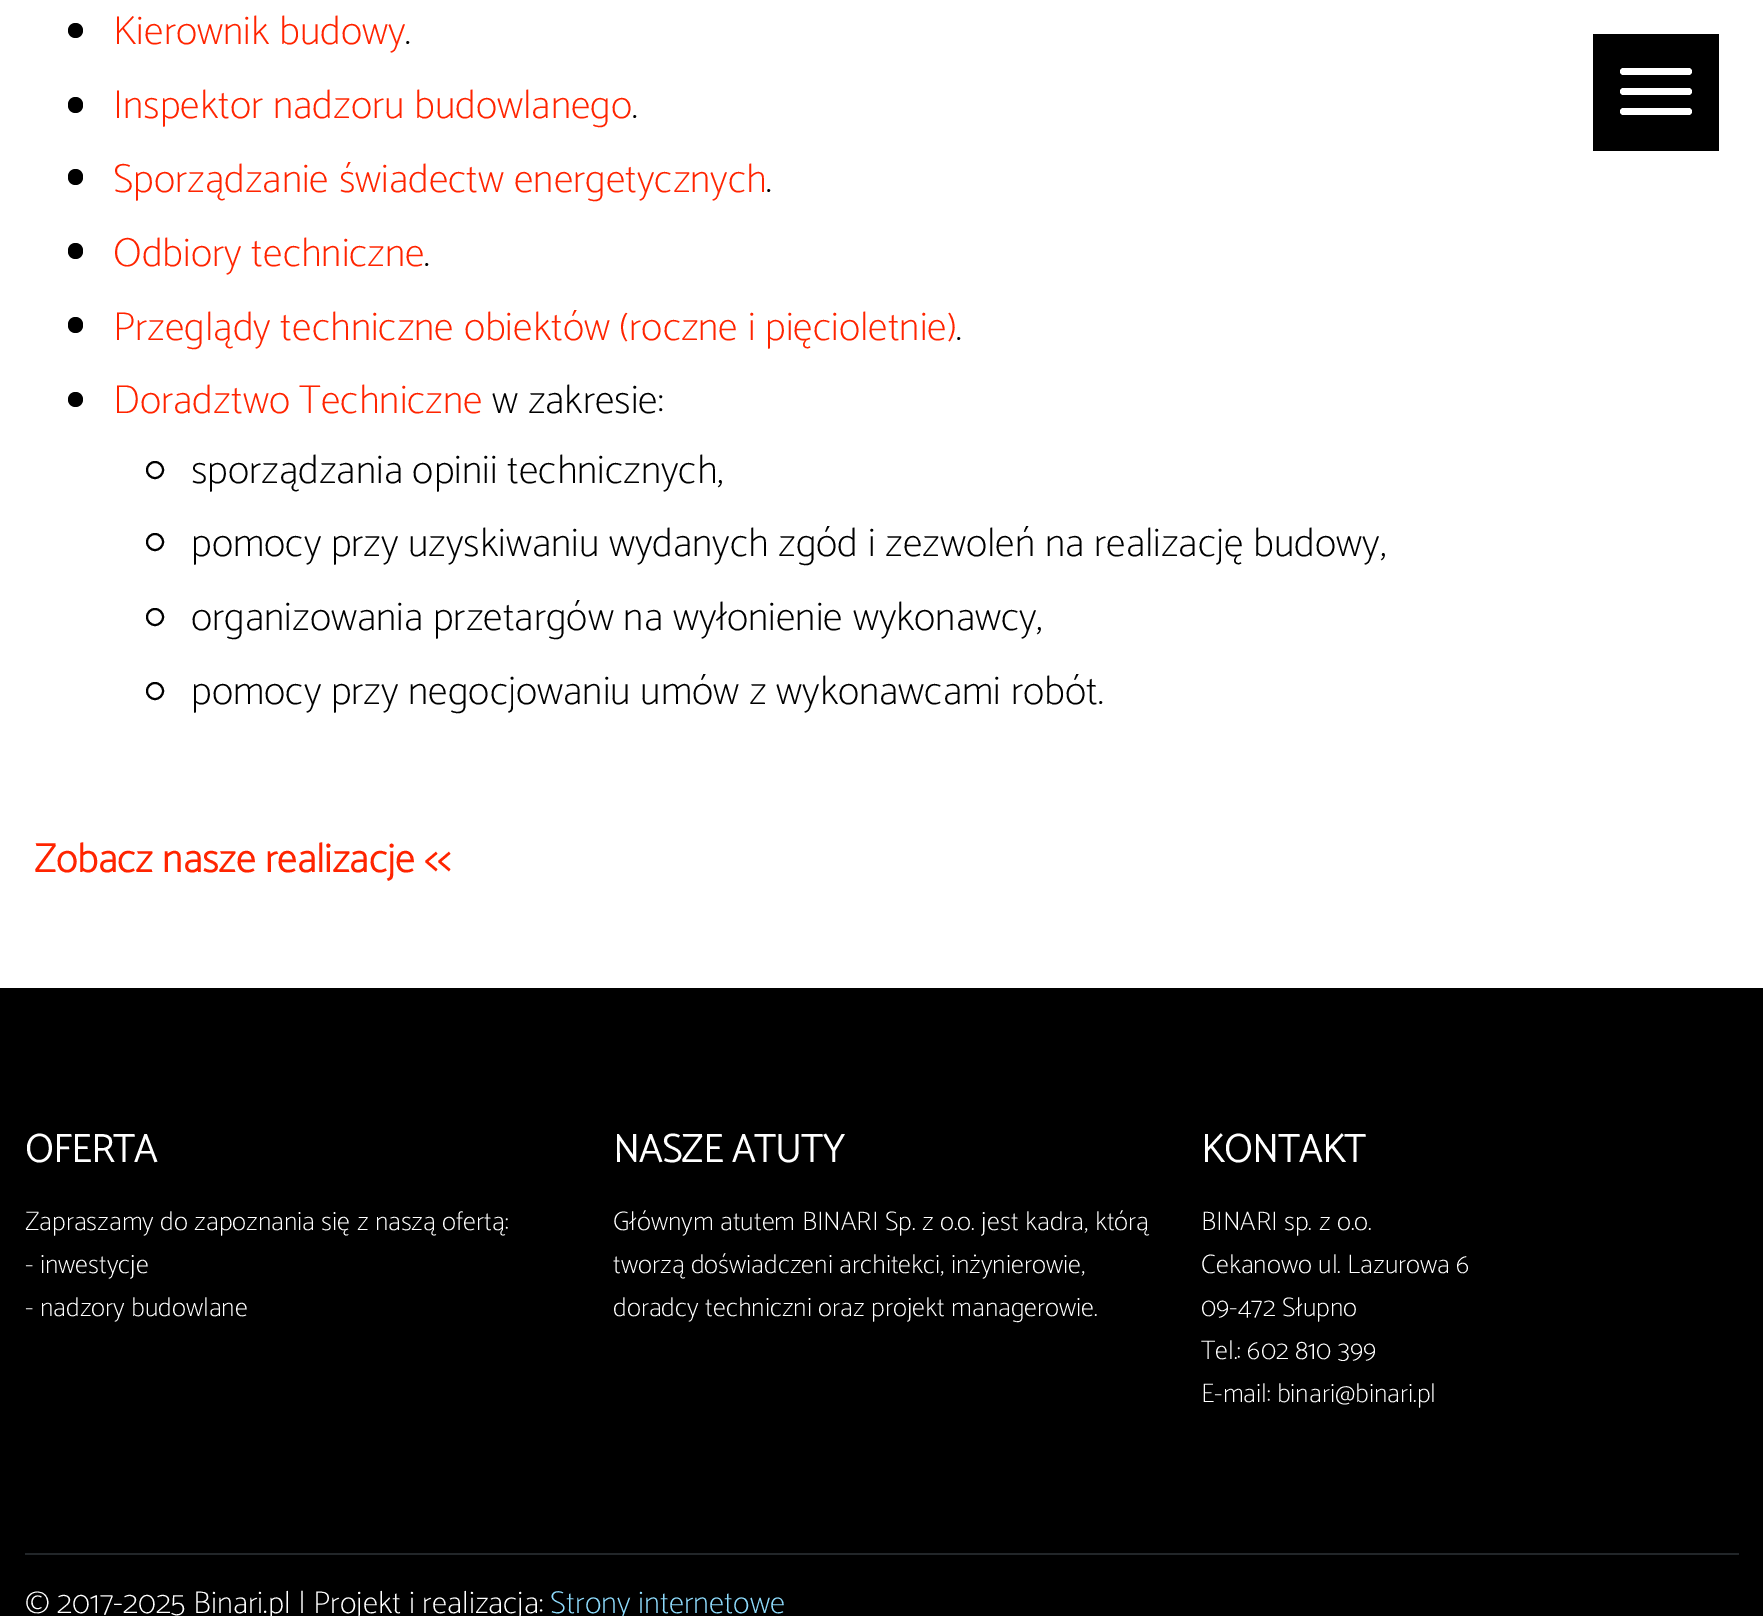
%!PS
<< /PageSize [1763 1616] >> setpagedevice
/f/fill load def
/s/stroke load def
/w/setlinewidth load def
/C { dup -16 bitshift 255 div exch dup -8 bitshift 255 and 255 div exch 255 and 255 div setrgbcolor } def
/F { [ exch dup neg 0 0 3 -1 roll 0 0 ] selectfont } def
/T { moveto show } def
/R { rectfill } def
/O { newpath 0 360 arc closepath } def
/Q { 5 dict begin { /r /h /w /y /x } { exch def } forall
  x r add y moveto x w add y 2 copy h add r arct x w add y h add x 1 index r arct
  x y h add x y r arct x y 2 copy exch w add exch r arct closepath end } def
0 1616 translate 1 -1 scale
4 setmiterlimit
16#FFFFFF C
0 0 1763 1616 R
16#000000 C
75.5 30.5 7.5 O f
/Catamaran-Thin 40.5 F
16#FF2400 C
(Kierownik budowy) 113 44 T
16#000000 C
(.) 405 44 T
68 97 15 16 7.5 Q f
16#FF2400 C
(Inspektor nadzoru budowlanego) 113 118 T
16#000000 C
(.) 632 118 T
68 169 15 16 7.5 Q f
16#FF2400 C
(Sporządzanie świadectw energetycznych) 113 192 T
16#000000 C
(.) 766 192 T
68 243 15 16 7.5 Q f
16#FF2400 C
(Odbiory techniczne) 113 266 T
16#000000 C
(.) 424 266 T
68 317 15 16 7.5 Q f
16#FF2400 C
(Przeglądy techniczne obiektów \(roczne i pięcioletnie\)) 113 340 T
16#000000 C
(.) 956 340 T
75.5 399.5 7.5 O f
16#FF2400 C
(Doradztwo Techniczne) 113 413 T
16#000000 C
(w zakresie:) 492 413 T
2 w
155 470 8 O s
(sporządzania opinii technicznych,) 191 483 T
155 542 8 O s
(pomocy przy uzyskiwaniu wydanych zgód i zezwoleń na realizację budowy,) 191 556 T
155 617 8 O s
(organizowania przetargów na wyłonienie wykonawcy,) 191 630 T
155 691 8 O s
(pomocy przy negocjowaniu umów z wykonawcami robót.) 191 704 T
/Catamaran-Bold 40.5 F
16#FF2400 C
(Zobacz nasze realizacje <<) 34 872 T
16#000000 C
1593 34 126 117 R
16#FFFFFF C
1620 88 72 7 3.5 Q f
1620 68 72 7 3.5 Q f
1620 108 72 7 3.5 Q f
16#000000 C
0 988 1763 628 R
16#222629 C
25 1553 1714 2 R
/Catamaran-Bold 39.5 F
16#FFFFFF C
(OFERTA) 25 1162 T
/Catamaran-Thin 26.75 F
(Zapraszamy do zapoznania się z naszą ofertą:) 25 1230 T
(- inwestycje) 25 1273 T
(- nadzory budowlane) 25 1316 T
/Catamaran-Bold 39.5 F
(NASZE ATUTY) 613 1162 T
/Catamaran-Thin 26.75 F
(Głównym atutem BINARI Sp. z o.o. jest kadra, którą) 613 1230 T
(tworzą doświadczeni architekci, inżynierowie,) 613 1273 T
(doradcy techniczni oraz projekt managerowie.) 613 1316 T
/Catamaran-Bold 39.5 F
(KONTAKT) 1201 1162 T
/Catamaran-Thin 26.75 F
(BINARI sp. z o.o.) 1201 1230 T
(Cekanowo ul. Lazurowa 6) 1201 1273 T
(09-472 Słupno) 1201 1316 T
(Tel.: 602 810 399) 1201 1359 T
(E-mail: binari@binari.pl) 1201 1402 T
/Catamaran-Thin 31.5 F
(© 2017-2025 Binari.pl | Projekt i realizacja:) 25 1613 T
16#8EDBFC C
(Strony internetowe) 550 1613 T
showpage
